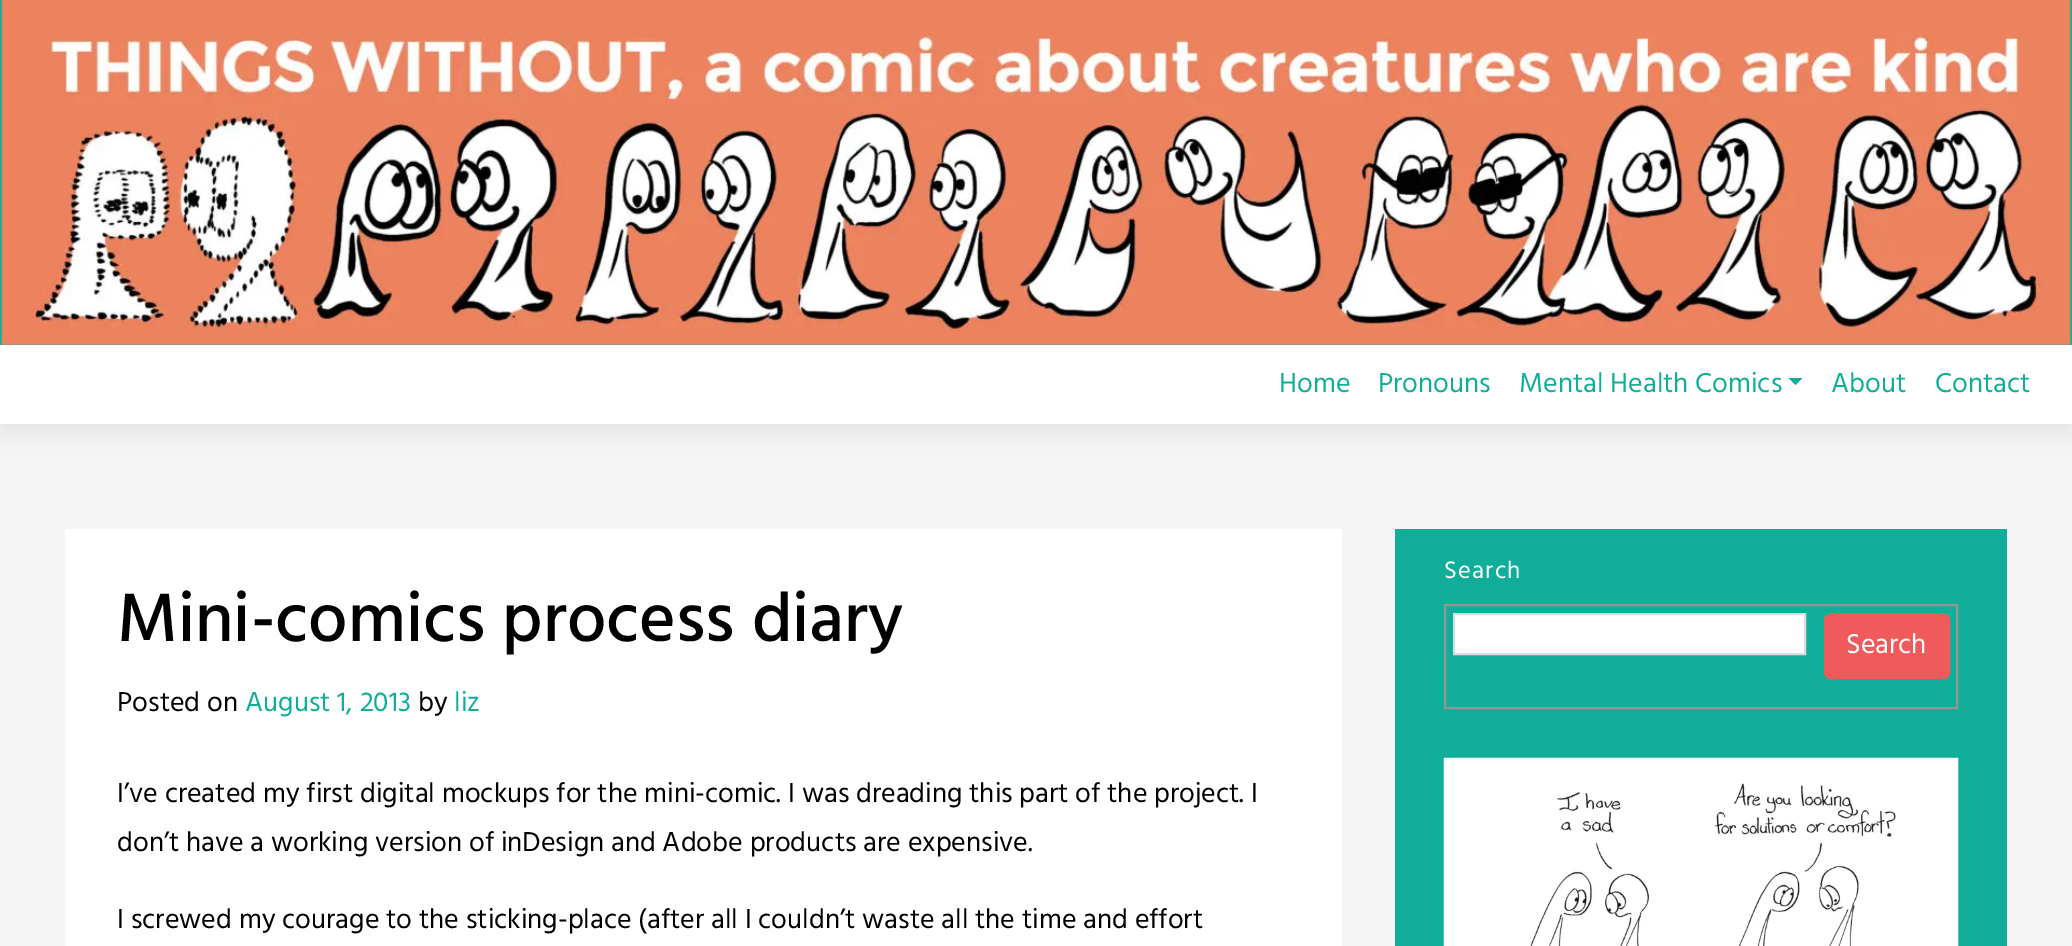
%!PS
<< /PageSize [2072 946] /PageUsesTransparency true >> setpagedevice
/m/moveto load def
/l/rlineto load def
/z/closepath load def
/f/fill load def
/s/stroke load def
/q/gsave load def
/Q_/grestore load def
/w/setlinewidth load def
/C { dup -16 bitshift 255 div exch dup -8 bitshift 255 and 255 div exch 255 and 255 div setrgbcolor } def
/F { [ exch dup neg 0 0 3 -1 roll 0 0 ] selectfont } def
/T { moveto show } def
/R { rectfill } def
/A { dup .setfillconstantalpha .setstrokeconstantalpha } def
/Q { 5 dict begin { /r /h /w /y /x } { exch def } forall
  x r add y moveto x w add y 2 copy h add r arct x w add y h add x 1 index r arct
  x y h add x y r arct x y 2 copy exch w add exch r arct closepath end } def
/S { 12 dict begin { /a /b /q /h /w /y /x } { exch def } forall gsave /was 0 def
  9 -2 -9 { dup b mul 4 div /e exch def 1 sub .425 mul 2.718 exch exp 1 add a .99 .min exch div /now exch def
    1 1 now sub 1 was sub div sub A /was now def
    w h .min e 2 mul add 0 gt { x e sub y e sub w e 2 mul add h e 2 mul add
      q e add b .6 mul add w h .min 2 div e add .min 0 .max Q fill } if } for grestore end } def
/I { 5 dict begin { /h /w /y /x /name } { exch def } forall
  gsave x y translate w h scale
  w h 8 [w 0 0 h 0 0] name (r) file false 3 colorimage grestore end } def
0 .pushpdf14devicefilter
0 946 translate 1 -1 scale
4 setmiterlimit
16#F5F5F5 C
0 0 2072 946 R
16#10AE98 C
0 0 2072 345 R
(1.rgb) 1 0 2070 345 I
16#323232 C
0 354 2072 78 0 9.5 .08 S
16#FFFFFF C
0 345 2072 79 R
/Hind-Regular 28 F
16#10AE98 C
(Home) 1279 392 T
(Pronouns) 1378 392 T
(Mental Health Comics) 1519 392 T
1788.5 378 m 14 0 l -7 7 l z f
(About) 1831 392 T
(Contact) 1935 392 T
16#FFFFFF C
65 529 1277 417 R
/Hind-Medium 70 F
16#000000 C
(Mini-comics process diary) 117 641 T
/Hind-Regular 28 F
(Posted on) 117 711 T
16#10AE98 C
(August 1, 2013) 245 711 T
16#000000 C
(by) 418 711 T
16#10AE98 C
(liz) 454 711 T
16#000000 C
(I’ve created my first digital mockups for the mini-comic. I was dreading this part of the project. I) 117 802 T
(don’t have a working version of inDesign and Adobe products are expensive.) 117 851 T
(I screwed my courage to the sticking-place \(after all I couldn’t waste all the time and effort) 117 928 T
16#10AE98 C
1395 529 612 417 R
/Hind-Regular 24.5 F
16#FFFFFF C
1444 578 m 1.25 0 (Search) ashow
16#949494 C
2 w
1445 605 512 103 rectstroke
16#FFFFFF C
1454 614 m 351 0 l 0 40 l -351 0 l z q f Q_
16#DDDDDD C
s
16#F15A5A C
1825 614 124 64 6 Q q f Q_
s
/Hind-Regular 28 F
16#FFFFFF C
(Search) 1846 653 T
(2.rgb) 1443 757 516 189 I
.poppdf14devicefilter showpage
